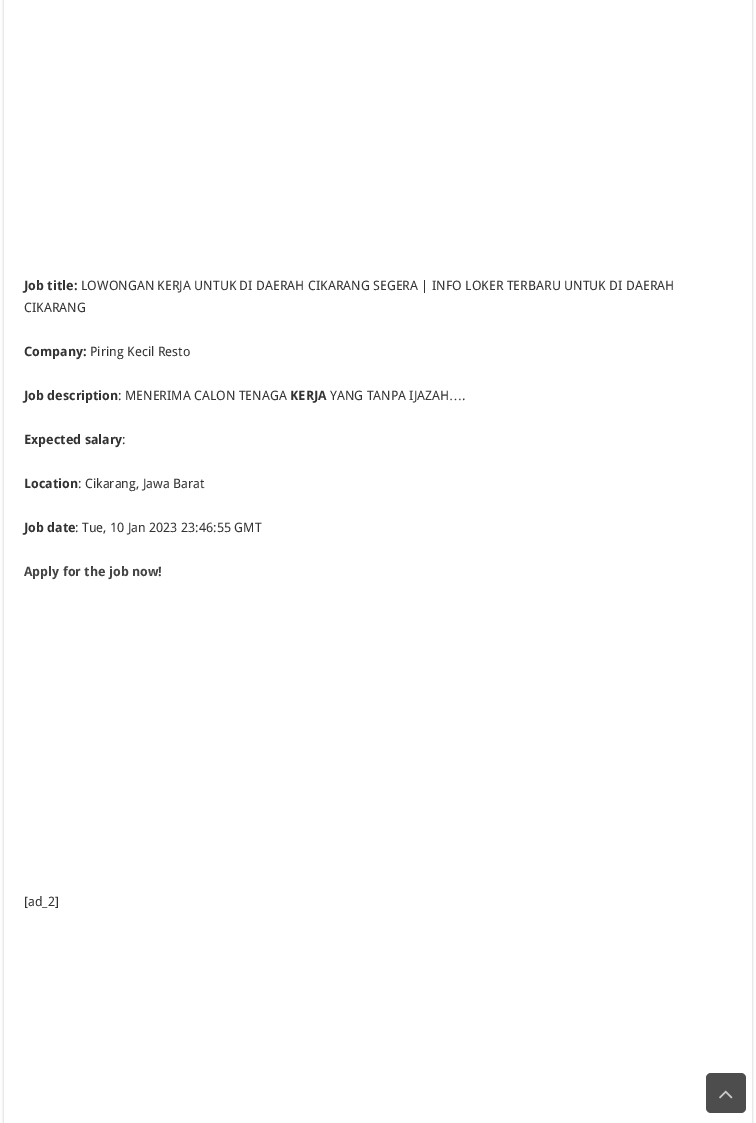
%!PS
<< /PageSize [756 1123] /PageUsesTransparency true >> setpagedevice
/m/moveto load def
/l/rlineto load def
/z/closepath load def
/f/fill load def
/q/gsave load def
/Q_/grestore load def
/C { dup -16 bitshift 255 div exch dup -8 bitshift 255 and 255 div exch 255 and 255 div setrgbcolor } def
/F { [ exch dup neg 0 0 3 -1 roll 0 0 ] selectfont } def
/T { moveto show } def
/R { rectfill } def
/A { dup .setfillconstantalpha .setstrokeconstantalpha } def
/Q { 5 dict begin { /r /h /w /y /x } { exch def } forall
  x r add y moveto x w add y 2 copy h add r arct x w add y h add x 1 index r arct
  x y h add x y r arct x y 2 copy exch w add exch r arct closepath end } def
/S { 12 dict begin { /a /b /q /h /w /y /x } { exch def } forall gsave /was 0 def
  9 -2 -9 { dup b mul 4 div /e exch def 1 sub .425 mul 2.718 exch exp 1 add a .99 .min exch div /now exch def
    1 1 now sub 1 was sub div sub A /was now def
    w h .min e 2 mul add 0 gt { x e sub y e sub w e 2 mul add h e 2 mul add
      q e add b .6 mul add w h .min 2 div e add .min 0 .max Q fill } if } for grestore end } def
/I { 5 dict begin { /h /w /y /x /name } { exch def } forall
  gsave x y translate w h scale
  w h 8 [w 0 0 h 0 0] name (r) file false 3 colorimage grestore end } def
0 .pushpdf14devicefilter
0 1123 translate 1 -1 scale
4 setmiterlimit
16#FFFFFF C
0 0 756 1123 R
q
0 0 m 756 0 l 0 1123 l -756 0 l z 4 -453 m 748 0 l 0 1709 l -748 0 l z eoclip newpath
16#CACACA C
4 -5 748 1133 0 1.5 1 S
Q_
/DroidSans-Bold 13 F
16#333333 C
(Job title:) 24 290 T
/DroidSans-Regular 13 F
(LOWONGAN KERJA UNTUK DI DAERAH CIKARANG SEGERA | INFO LOKER TERBARU UNTUK DI DAERAH) 81 290 T
(CIKARANG) 24 312 T
/DroidSans-Bold 13 F
(Company:) 24 356 T
/DroidSans-Regular 13 F
(Piring Kecil Resto) 90 356 T
/DroidSans-Bold 13 F
(Job description) 24 400 T
/DroidSans-Regular 13 F
(: MENERIMA CALON TENAGA) 118 400 T
/DroidSans-Bold 13 F
(KERJA) 290 400 T
/DroidSans-Regular 13 F
(YANG TANPA IJAZAH) 330 400 T
/LiberationSerif-Regular 13 F
(…) 449 400 T
/DroidSans-Regular 13 F
(.) 462 400 T
/DroidSans-Bold 13 F
(Expected salary) 24 444 T
/DroidSans-Regular 13 F
(:) 122 444 T
/DroidSans-Bold 13 F
(Location) 24 488 T
/DroidSans-Regular 13 F
(: Cikarang, Jawa Barat) 78 488 T
/DroidSans-Bold 13 F
(Job date) 24 532 T
/DroidSans-Regular 13 F
(: Tue, 10 Jan 2023 23:46:55 GMT) 75 532 T
/DroidSans-Bold 13 F
16#444444 C
(Apply for the job now!) 24 576 T
/DroidSans-Regular 13 F
16#333333 C
([ad_2]) 24 906 T
16#4D4D4D C
706 1073 40 40 5 Q f
(1.rgb) 719 1090 14 9 I
.poppdf14devicefilter showpage
